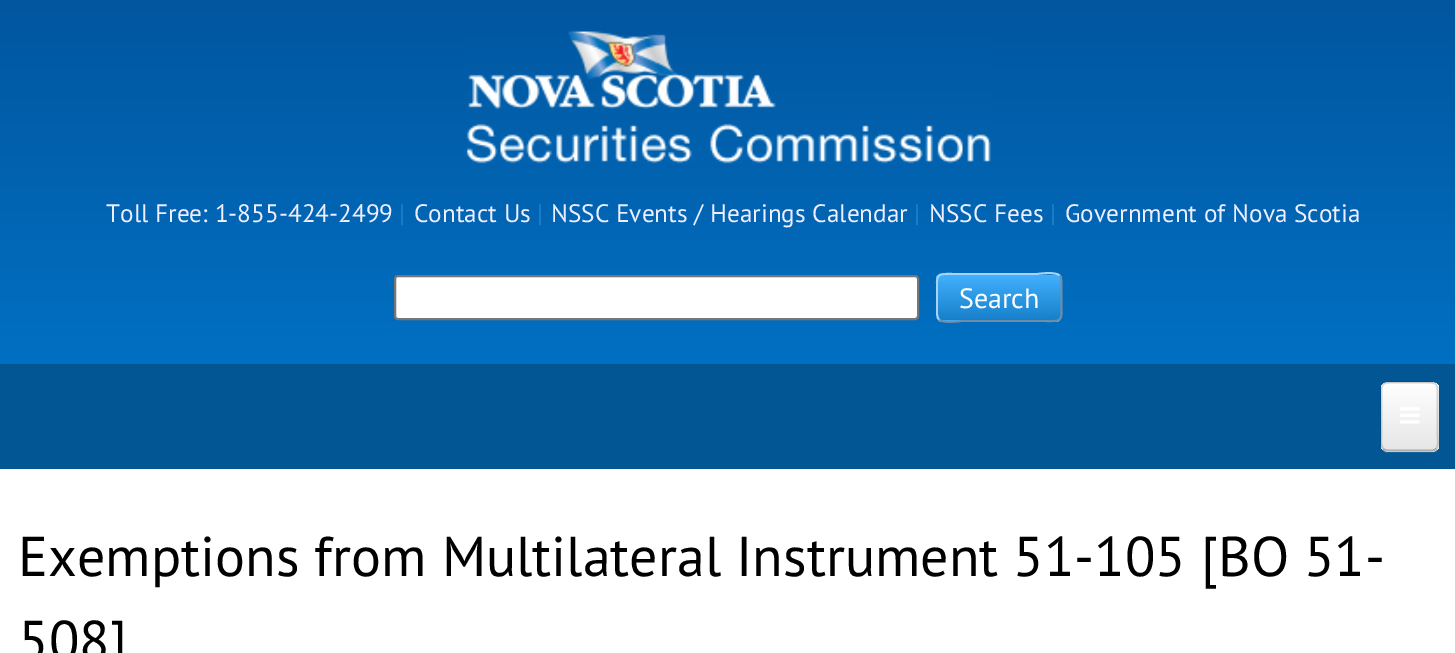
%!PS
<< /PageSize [1455 653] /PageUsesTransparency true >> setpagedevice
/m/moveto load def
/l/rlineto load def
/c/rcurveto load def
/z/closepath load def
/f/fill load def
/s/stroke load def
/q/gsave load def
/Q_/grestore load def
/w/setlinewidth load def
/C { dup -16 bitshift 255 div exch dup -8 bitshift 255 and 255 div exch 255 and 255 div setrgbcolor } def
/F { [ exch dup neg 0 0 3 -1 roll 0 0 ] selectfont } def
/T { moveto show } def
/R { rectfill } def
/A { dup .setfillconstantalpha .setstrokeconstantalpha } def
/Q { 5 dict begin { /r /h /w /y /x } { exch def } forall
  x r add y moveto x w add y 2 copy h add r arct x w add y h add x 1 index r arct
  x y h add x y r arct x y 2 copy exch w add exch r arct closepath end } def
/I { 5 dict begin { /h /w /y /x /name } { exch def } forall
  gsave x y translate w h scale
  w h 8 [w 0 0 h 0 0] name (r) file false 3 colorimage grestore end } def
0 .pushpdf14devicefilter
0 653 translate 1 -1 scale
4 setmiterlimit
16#FFFFFF C
0 0 1455 653 R
q 0 0 m 1455 0 l 0 364 l -1455 0 l z clip newpath
<< /ShadingType 2 /ColorSpace /DeviceRGB /Coords [728 0 728 364] /Extend [true true] /Function << /FunctionType 2 /Domain [0 1] /C0 [.004 .337 .624] /C1 [.004 .439 .761] /N 1 >> >> shfill Q_
(1.rgb) 466 30 525 134 I
/PTSans-Regular 25.25 F
16#EEEEFF C
(Toll Free: 1-855-424-2499) 106 222 T
16#2283D0 C
(|) 399 222 T
16#EEEEFF C
(Contact Us) 414 222 T
16#2283D0 C
(|) 537 222 T
16#EEEEFF C
(NSSC Events / Hearings Calendar) 551 222 T
16#2283D0 C
(|) 914 222 T
16#EEEEFF C
(NSSC Fees) 929 222 T
16#2283D0 C
(|) 1050 222 T
16#EEEEFF C
(Government of Nova Scotia) 1065 222 T
16#FFFFFF C
395 276 523 43 3 Q q f Q_
16#767676 C
2 w
s
q
936 273 126 49 7 Q clip newpath
q 936 273 m 126 0 l 0 2 l -126 0 l z clip newpath
<< /ShadingType 2 /ColorSpace /DeviceRGB /Coords [999 229 999 275] /Extend [true true] /Function << /FunctionType 2 /Domain [0 1] /C0 [.259 .69 .992] /C1 [.09 .502 .796] /N 1 >> >> shfill Q_
q 936 275 m 126 0 l 0 45 l -126 0 l z clip newpath
<< /ShadingType 2 /ColorSpace /DeviceRGB /Coords [999 275 999 320] /Extend [true true] /Function << /FunctionType 2 /Domain [0 1] /C0 [.259 .69 .992] /C1 [.09 .502 .796] /N 1 >> >> shfill Q_
q 936 320 m 126 0 l 0 2 l -126 0 l z clip newpath
<< /ShadingType 2 /ColorSpace /DeviceRGB /Coords [999 320 999 366] /Extend [true true] /Function << /FunctionType 2 /Domain [0 1] /C0 [.259 .69 .992] /C1 [.09 .502 .796] /N 1 >> >> shfill Q_
Q_
16#6F8DA6 C
1.8 w
1059.5 275.5 m 2.5 3 2 7 2 10.5 c 0 11.5 l 0 27 3.5 23.5 -25 23.5 c -74.5 0 l -1.5 0 -18.5 3 -23 -1.5 c s
16#A7D3F9 C
939 319.5 m -2.5 -3 -2 -7 -2 -10.5 c 0 -11.5 l 0 -27 -3.5 -23.5 25 -23.5 c 74.5 0 l 1.5 0 18.5 -3 23 1.5 c s
/PTSans-Regular 28 F
16#FFFFFF C
(Search) 959 308 T
16#025693 C
0 364 1455 105 R
16#15639B C
1381 446 m 0 4 3 7 7 7 c 44 0 l 4 0 7 -3 7 -7 c 0 -56 l -1 -3 l 0 57 l 0 4 -3 8 -6 8 c -44 0 l -3 0 -6 -3 -7 -6 c z f
16#E8E8E8 C
1381 382 58 70 7 Q f
q
1381 382 58 70 7 Q clip newpath
q 1381 383 m 58 0 l 0 67 l -58 0 l z clip newpath
<< /ShadingType 2 /ColorSpace /DeviceRGB /Coords [1410 383 1410 450] /Extend [true true] /Function << /FunctionType 2 /Domain [0 1] /C0 [1 1 1] /C1 [.902 .902 .902] /N 1 >> >> shfill Q_
Q_
0.25 A
16#000000 C
1436 449 m -1.5 1 -3 1.5 -4.5 1.5 c -43.5 0 l -2 0 -3.5 -.5 -4.5 -1.5 c s
0.15 A
1383.5 449 m -3.5 -3.5 -2 -10.5 -2 -14 c 0 -37 l 0 -15 -1 -15.5 13.5 -15.5 c 29 0 l 14.5 0 13.5 .5 13.5 15.5 c 0 37 l 0 3.5 1.5 10.5 -1.5 14 c s
1 A
(2.rgb) 1400 407 20 17 I
/PTSans-Regular 56 F
(Exemptions from Multilateral Instrument 51-105 [BO 51-) 18 576 T
(508]) 18 660 T
.poppdf14devicefilter showpage
